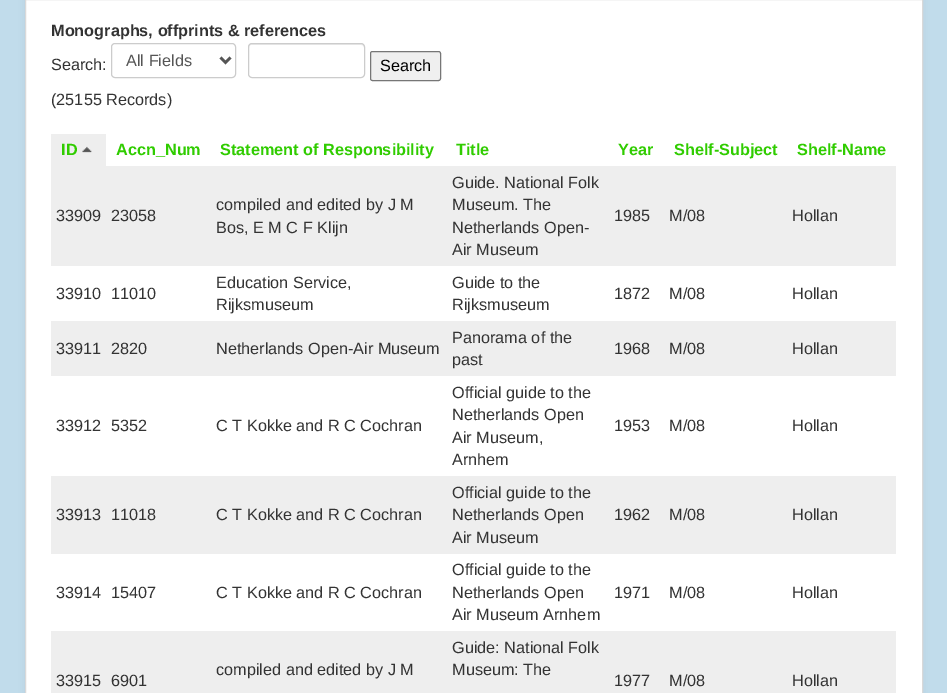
%!PS
<< /PageSize [947 693] /PageUsesTransparency true >> setpagedevice
/m/moveto load def
/l/rlineto load def
/c/rcurveto load def
/z/closepath load def
/f/fill load def
/s/stroke load def
/q/gsave load def
/Q_/grestore load def
/w/setlinewidth load def
/C { dup -16 bitshift 255 div exch dup -8 bitshift 255 and 255 div exch 255 and 255 div setrgbcolor } def
/F { [ exch dup neg 0 0 3 -1 roll 0 0 ] selectfont } def
/T { moveto show } def
/R { rectfill } def
/A { dup .setfillconstantalpha .setstrokeconstantalpha } def
/Q { 5 dict begin { /r /h /w /y /x } { exch def } forall
  x r add y moveto x w add y 2 copy h add r arct x w add y h add x 1 index r arct
  x y h add x y r arct x y 2 copy exch w add exch r arct closepath end } def
/S { 12 dict begin { /a /b /q /h /w /y /x } { exch def } forall gsave /was 0 def
  9 -2 -9 { dup b mul 4 div /e exch def 1 sub .425 mul 2.718 exch exp 1 add a .99 .min exch div /now exch def
    1 1 now sub 1 was sub div sub A /was now def
    w h .min e 2 mul add 0 gt { x e sub y e sub w e 2 mul add h e 2 mul add
      q e add b .6 mul add w h .min 2 div e add .min 0 .max Q fill } if } for grestore end } def
/I { 5 dict begin { /h /w /y /x /name } { exch def } forall
  gsave x y translate w h scale
  w h 8 [w 0 0 h 0 0] name (r) file false 3 colorimage grestore end } def
0 .pushpdf14devicefilter
0 693 translate 1 -1 scale
4 setmiterlimit
16#C1DCEB C
0 0 947 693 R
16#000000 C
25 -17 898 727 5 4 .05 S
16#FFFFFF C
25.5 -.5 m 897 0 l 0 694 l -897 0 l z q f Q_
16#D9D9D9 C
s
/LiberationSans-Bold 16.25 F
16#333333 C
(Monographs, offprints & references) 51 36 T
/LiberationSans-Regular 16.25 F
(Search:) 51 70 T
16#CCCCCC C
111.5 43.5 124 34 3.5 Q s
16#555555 C
2.5 w
220.5 57.5 m 5 5 l 5 -5 l s
(All Fields) 126 66 T
16#ECECEC C
251 45 m 110 0 l 2 0 3 1 3 3 c 0 -2 l 0 -1 -1 -2 -2 -2 c -110 0 l -2 0 -3 1 -3 2 c 0 2 l 0 -2 1 -3 2 -3 c z f
16#CCCCCC C
1 w
248.5 43.5 116 34 3.5 Q s
16#EFEFEF C
370.5 51.5 70 29 2 Q q f Q_
16#767676 C
s
16#000000 C
(Search) 380 71 T
16#333333 C
(\(25155 Records\)) 51 105 T
16#EEEEEE C
51 134 55 32 R
/LiberationSans-Bold 16.25 F
16#30CC00 C
(ID) 61 155 T
(1.rgb) 82 146 10 7 I
(Accn_Num) 116 155 T
(Statement of Responsibility) 220 155 T
(Title) 456 155 T
(Year) 618 155 T
(Shelf-Subject) 674 155 T
(Shelf-Name) 797 155 T
16#EEEEEE C
51 166 845 100 R
/LiberationSans-Regular 16.25 F
16#333333 C
(33909) 56 221 T
(23058) 111 221 T
(compiled and edited by J M) 216 210 T
(Bos, E M C F Klijn) 216 233 T
(Guide. National Folk) 452 188 T
(Museum. The) 452 210 T
(Netherlands Open-) 452 233 T
(Air Museum) 452 255 T
(1985) 614 221 T
(M/08) 669 221 T
(Hollan) 792 221 T
(33910) 56 299 T
(11010) 111 299 T
(Education Service,) 216 288 T
(Rijksmuseum) 216 310 T
(Guide to the) 452 288 T
(Rijksmuseum) 452 310 T
(1872) 614 299 T
(M/08) 669 299 T
(Hollan) 792 299 T
16#EEEEEE C
51 321 845 55 R
16#333333 C
(33911) 56 354 T
(2820) 111 354 T
(Netherlands Open-Air Museum) 216 354 T
(Panorama of the) 452 343 T
(past) 452 365 T
(1968) 614 354 T
(M/08) 669 354 T
(Hollan) 792 354 T
(33912) 56 431 T
(5352) 111 431 T
(C T Kokke and R C Cochran) 216 431 T
(Official guide to the) 452 398 T
(Netherlands Open) 452 420 T
(Air Museum,) 452 443 T
(Arnhem) 452 465 T
(1953) 614 431 T
(M/08) 669 431 T
(Hollan) 792 431 T
16#EEEEEE C
51 476 845 78 R
16#333333 C
(33913) 56 520 T
(11018) 111 520 T
(C T Kokke and R C Cochran) 216 520 T
(Official guide to the) 452 498 T
(Netherlands Open) 452 520 T
(Air Museum) 452 543 T
(1962) 614 520 T
(M/08) 669 520 T
(Hollan) 792 520 T
(33914) 56 598 T
(15407) 111 598 T
(C T Kokke and R C Cochran) 216 598 T
(Official guide to the) 452 575 T
(Netherlands Open) 452 598 T
(Air Museum Arnhem) 452 620 T
(1971) 614 598 T
(M/08) 669 598 T
(Hollan) 792 598 T
16#EEEEEE C
51 631 845 62 R
16#333333 C
(compiled and edited by J M) 216 675 T
(Guide: National Folk) 452 653 T
(Museum: The) 452 675 T
(33915) 56 686 T
(6901) 111 686 T
(1977) 614 686 T
(M/08) 669 686 T
(Hollan) 792 686 T
.poppdf14devicefilter showpage
